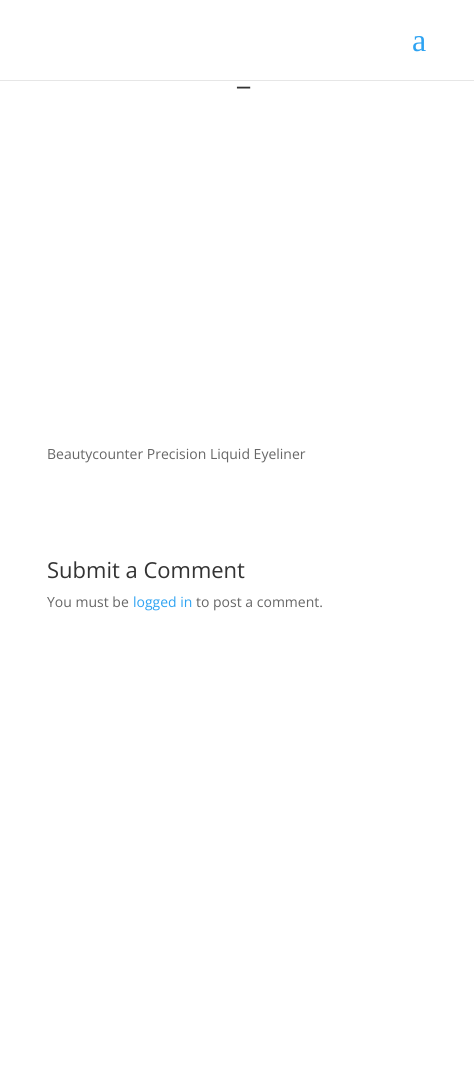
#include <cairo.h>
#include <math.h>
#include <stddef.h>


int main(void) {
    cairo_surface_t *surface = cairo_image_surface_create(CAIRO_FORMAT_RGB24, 474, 1083);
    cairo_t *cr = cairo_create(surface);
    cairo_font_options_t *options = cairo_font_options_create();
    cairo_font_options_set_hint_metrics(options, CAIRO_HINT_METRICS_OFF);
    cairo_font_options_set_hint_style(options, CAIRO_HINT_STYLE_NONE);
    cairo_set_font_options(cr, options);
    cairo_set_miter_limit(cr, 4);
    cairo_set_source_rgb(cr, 1, 1, 1);
    cairo_paint(cr);
    cairo_set_source_rgba(cr, 0, 0, 0, 0.1);
    cairo_rectangle(cr, 0, 80, 474, 1);
    cairo_fill(cr);
    cairo_select_font_face(cr, "Liberation Serif", CAIRO_FONT_SLANT_NORMAL, CAIRO_FONT_WEIGHT_NORMAL);
    cairo_set_font_size(cr, 32);
    cairo_set_source_rgb(cr, 0.18, 0.639, 0.949);
    cairo_move_to(cr, 412, 51);
    cairo_show_text(cr, "a");
    cairo_select_font_face(cr, "Open Sans", CAIRO_FONT_SLANT_NORMAL, CAIRO_FONT_WEIGHT_NORMAL);
    cairo_set_font_size(cr, 30);
    cairo_set_source_rgb(cr, 0.2, 0.2, 0.2);
    cairo_move_to(cr, 237, 84);
    cairo_show_text(cr, "_");
    cairo_set_font_size(cr, 14);
    cairo_set_source_rgb(cr, 0.4, 0.4, 0.4);
    cairo_move_to(cr, 47, 459);
    cairo_show_text(cr, "Beautycounter Precision Liquid Eyeliner");
    cairo_set_font_size(cr, 22);
    cairo_set_source_rgb(cr, 0.2, 0.2, 0.2);
    cairo_move_to(cr, 47, 578);
    cairo_show_text(cr, "Submit a Comment");
    cairo_set_font_size(cr, 14);
    cairo_set_source_rgb(cr, 0.4, 0.4, 0.4);
    cairo_move_to(cr, 47, 607);
    cairo_show_text(cr, "You must be");
    cairo_set_source_rgb(cr, 0.18, 0.639, 0.949);
    cairo_move_to(cr, 133, 607);
    cairo_show_text(cr, "logged in");
    cairo_set_source_rgb(cr, 0.4, 0.4, 0.4);
    cairo_move_to(cr, 196, 607);
    cairo_show_text(cr, "to post a comment.");
    cairo_surface_write_to_png(surface, "page.png");
    cairo_font_options_destroy(options);
    cairo_destroy(cr);
    cairo_surface_destroy(surface);
    return 0;
}
